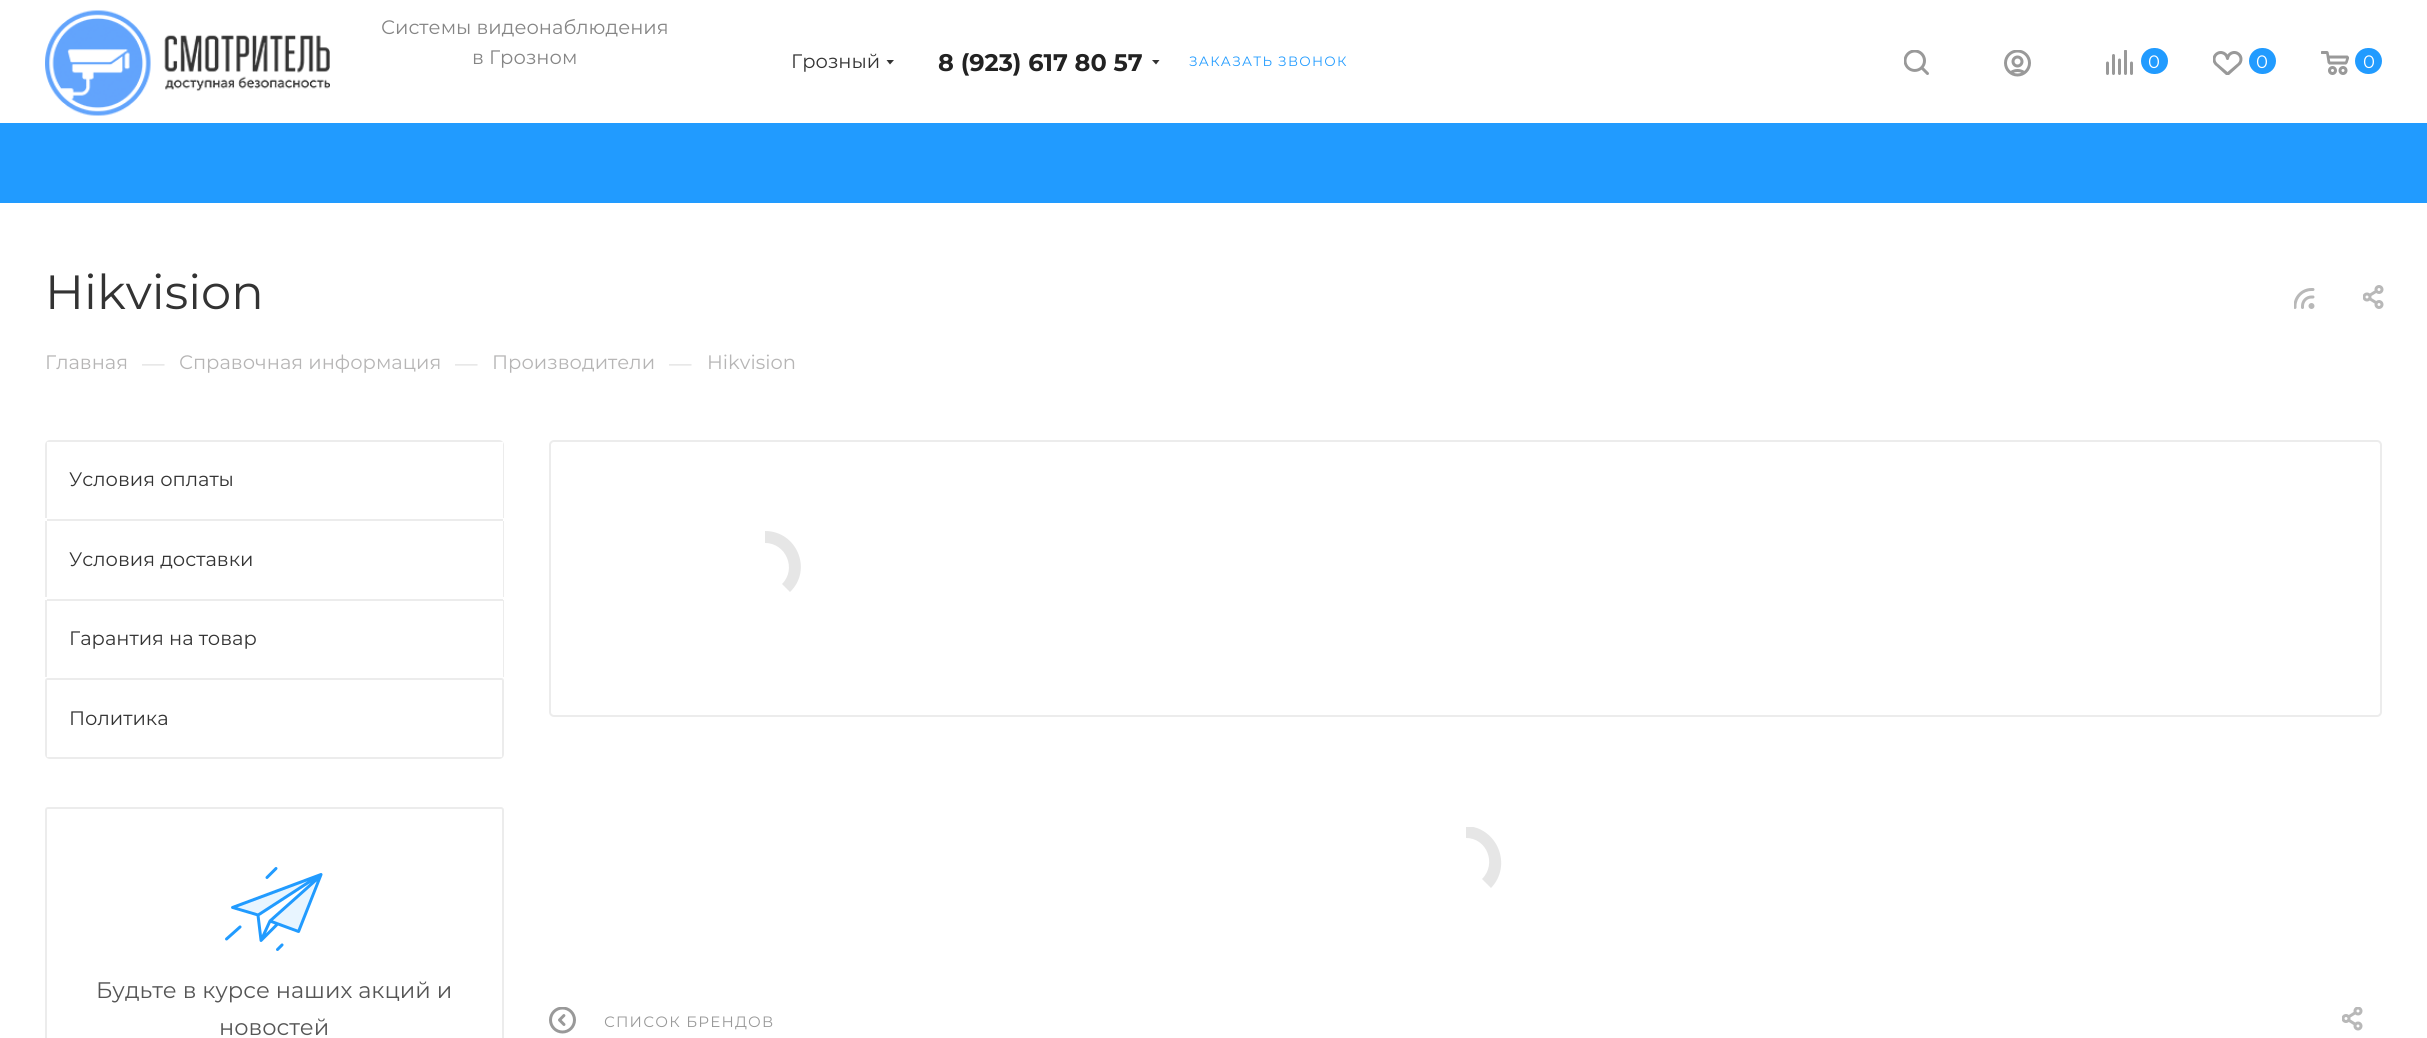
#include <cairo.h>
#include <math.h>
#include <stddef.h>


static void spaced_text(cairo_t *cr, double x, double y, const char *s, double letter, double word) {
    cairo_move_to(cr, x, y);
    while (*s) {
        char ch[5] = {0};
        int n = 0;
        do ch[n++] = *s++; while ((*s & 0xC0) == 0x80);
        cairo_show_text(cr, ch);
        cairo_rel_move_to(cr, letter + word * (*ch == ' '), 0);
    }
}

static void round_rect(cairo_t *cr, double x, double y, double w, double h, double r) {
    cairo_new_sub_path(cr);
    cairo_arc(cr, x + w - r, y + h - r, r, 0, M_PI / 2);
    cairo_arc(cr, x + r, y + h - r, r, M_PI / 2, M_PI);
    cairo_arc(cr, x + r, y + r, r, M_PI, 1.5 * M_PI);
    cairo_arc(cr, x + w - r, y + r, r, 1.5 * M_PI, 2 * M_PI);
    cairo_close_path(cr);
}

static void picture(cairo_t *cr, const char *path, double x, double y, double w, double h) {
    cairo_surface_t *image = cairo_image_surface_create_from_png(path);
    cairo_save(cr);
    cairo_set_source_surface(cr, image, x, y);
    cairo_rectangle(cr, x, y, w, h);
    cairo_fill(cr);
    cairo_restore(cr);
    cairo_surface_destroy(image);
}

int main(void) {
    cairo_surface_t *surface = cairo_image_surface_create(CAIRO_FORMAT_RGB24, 2427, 1038);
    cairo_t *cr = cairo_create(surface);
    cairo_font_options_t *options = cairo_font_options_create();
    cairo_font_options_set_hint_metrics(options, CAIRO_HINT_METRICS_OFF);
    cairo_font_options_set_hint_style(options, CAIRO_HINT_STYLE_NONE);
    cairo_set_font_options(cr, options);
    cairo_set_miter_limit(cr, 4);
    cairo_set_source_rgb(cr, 1, 1, 1);
    cairo_paint(cr);
    picture(cr, "img1.png", 45, 10, 285, 106);
    cairo_select_font_face(cr, "Montserrat", CAIRO_FONT_SLANT_NORMAL, CAIRO_FONT_WEIGHT_NORMAL);
    cairo_set_font_size(cr, 19.5);
    cairo_set_source_rgb(cr, 0.522, 0.522, 0.522);
    cairo_move_to(cr, 381, 34);
    cairo_show_text(cr, "Системы видеонаблюдения");
    cairo_move_to(cr, 472, 64);
    cairo_show_text(cr, "в Грозном");
    cairo_set_source_rgb(cr, 0.2, 0.2, 0.2);
    cairo_move_to(cr, 791, 68);
    cairo_show_text(cr, "Грозный");
    cairo_set_fill_rule(cr, CAIRO_FILL_RULE_EVEN_ODD);
    cairo_new_path(cr);
    cairo_move_to(cr, 886.5, 60);
    cairo_line_to(cr, 894, 60);
    cairo_line_to(cr, 890, 64.5);
    cairo_close_path(cr);
    cairo_fill(cr);
    cairo_select_font_face(cr, "Montserrat", CAIRO_FONT_SLANT_NORMAL, CAIRO_FONT_WEIGHT_BOLD);
    cairo_set_font_size(cr, 24);
    cairo_set_source_rgb(cr, 0.133, 0.133, 0.133);
    cairo_move_to(cr, 938, 71);
    cairo_show_text(cr, "8 (923) 617 80 57");
    cairo_set_source_rgb(cr, 0.2, 0.2, 0.2);
    cairo_new_path(cr);
    cairo_move_to(cr, 1152, 60);
    cairo_line_to(cr, 1159.5, 60);
    cairo_line_to(cr, 1156, 64.5);
    cairo_close_path(cr);
    cairo_fill(cr);
    cairo_select_font_face(cr, "Montserrat", CAIRO_FONT_SLANT_NORMAL, CAIRO_FONT_WEIGHT_NORMAL);
    cairo_set_font_size(cr, 13.5);
    cairo_set_source_rgb(cr, 0.129, 0.608, 1);
    spaced_text(cr, 1189, 66, "ЗАКАЗАТЬ ЗВОНОК", 1.25, 0);
    picture(cr, "img2.png", 1904, 50, 25, 25);
    picture(cr, "img3.png", 2004, 50, 27, 27);
    picture(cr, "img4.png", 2106, 50, 27, 25);
    round_rect(cr, 2141, 48, 27, 26, 13);
    cairo_fill(cr);
    cairo_set_font_size(cr, 18);
    cairo_set_source_rgb(cr, 1, 1, 1);
    cairo_move_to(cr, 2148, 68);
    cairo_show_text(cr, "0");
    picture(cr, "img5.png", 2213, 51, 30, 24);
    cairo_set_source_rgb(cr, 0.129, 0.608, 1);
    round_rect(cr, 2249, 48, 27, 26, 13);
    cairo_fill(cr);
    cairo_set_source_rgb(cr, 1, 1, 1);
    cairo_move_to(cr, 2256, 68);
    cairo_show_text(cr, "0");
    picture(cr, "img6.png", 2321, 51, 28, 24);
    cairo_set_source_rgb(cr, 0.129, 0.608, 1);
    round_rect(cr, 2355, 48, 27, 26, 13);
    cairo_fill(cr);
    cairo_set_source_rgb(cr, 1, 1, 1);
    cairo_move_to(cr, 2363, 68);
    cairo_show_text(cr, "0");
    cairo_set_source_rgb(cr, 0.129, 0.608, 1);
    cairo_rectangle(cr, 0, 123, 2427, 80);
    cairo_fill(cr);
    cairo_set_font_size(cr, 48);
    cairo_set_source_rgb(cr, 0.2, 0.2, 0.2);
    cairo_move_to(cr, 45, 309);
    cairo_show_text(cr, "Hikvision");
    picture(cr, "img7.png", 2294, 288, 21, 21);
    picture(cr, "img8.png", 2363, 285, 21, 24);
    cairo_set_font_size(cr, 19.5);
    cairo_set_source_rgb(cr, 0.714, 0.71, 0.71);
    cairo_move_to(cr, 45, 369);
    cairo_show_text(cr, "Главная");
    cairo_set_font_size(cr, 22.5);
    cairo_set_source_rgb(cr, 0.867, 0.867, 0.867);
    cairo_move_to(cr, 142, 371);
    cairo_show_text(cr, "—");
    cairo_set_font_size(cr, 19.5);
    cairo_set_source_rgb(cr, 0.714, 0.71, 0.71);
    cairo_move_to(cr, 179, 369);
    cairo_show_text(cr, "Справочная информация");
    cairo_set_font_size(cr, 22.5);
    cairo_set_source_rgb(cr, 0.867, 0.867, 0.867);
    cairo_move_to(cr, 455, 371);
    cairo_show_text(cr, "—");
    cairo_set_font_size(cr, 19.5);
    cairo_set_source_rgb(cr, 0.714, 0.71, 0.71);
    cairo_move_to(cr, 492, 369);
    cairo_show_text(cr, "Производители");
    cairo_set_font_size(cr, 22.5);
    cairo_set_source_rgb(cr, 0.867, 0.867, 0.867);
    cairo_move_to(cr, 669, 371);
    cairo_show_text(cr, "—");
    cairo_set_font_size(cr, 19.5);
    cairo_set_source_rgb(cr, 0.714, 0.71, 0.71);
    cairo_move_to(cr, 707, 369);
    cairo_show_text(cr, "Hikvision");
    cairo_save(cr);
    cairo_set_fill_rule(cr, CAIRO_FILL_RULE_WINDING);
    round_rect(cr, 45, 440, 459, 319, 5);
    cairo_clip(cr);
    cairo_set_source_rgb(cr, 0.925, 0.925, 0.925);
    cairo_rectangle(cr, 47, 440, 456, 2);
    cairo_fill(cr);
    cairo_rectangle(cr, 503, 441, 1, 77);
    cairo_fill(cr);
    cairo_rectangle(cr, 45, 441, 2, 77);
    cairo_fill(cr);
    cairo_restore(cr);
    cairo_set_source_rgb(cr, 0.2, 0.2, 0.2);
    cairo_move_to(cr, 69, 486);
    cairo_show_text(cr, "Условия оплаты");
    cairo_set_source_rgb(cr, 0.925, 0.925, 0.925);
    cairo_rectangle(cr, 47, 519, 456, 2);
    cairo_fill(cr);
    cairo_rectangle(cr, 503, 521, 1, 76);
    cairo_fill(cr);
    cairo_rectangle(cr, 45, 521, 2, 76);
    cairo_fill(cr);
    cairo_set_source_rgb(cr, 0.2, 0.2, 0.2);
    cairo_move_to(cr, 69, 566);
    cairo_show_text(cr, "Условия доставки");
    cairo_set_source_rgb(cr, 0.925, 0.925, 0.925);
    cairo_rectangle(cr, 47, 599, 456, 2);
    cairo_fill(cr);
    cairo_rectangle(cr, 503, 600, 1, 77);
    cairo_fill(cr);
    cairo_rectangle(cr, 45, 600, 2, 77);
    cairo_fill(cr);
    cairo_set_source_rgb(cr, 0.2, 0.2, 0.2);
    cairo_move_to(cr, 69, 645);
    cairo_show_text(cr, "Гарантия на товар");
    cairo_set_source_rgb(cr, 0.925, 0.925, 0.925);
    cairo_new_path(cr);
    cairo_move_to(cr, 48, 678);
    cairo_curve_to(cr, 46, 678, 45, 679, 45, 681);
    cairo_line_to(cr, 45, 754);
    cairo_curve_to(cr, 45, 757, 47, 759, 50, 759);
    cairo_line_to(cr, 499, 759);
    cairo_curve_to(cr, 502, 759, 504, 757, 504, 754);
    cairo_line_to(cr, 504, 681);
    cairo_curve_to(cr, 504, 679, 503, 678, 501, 678);
    cairo_close_path(cr);
    cairo_move_to(cr, 48, 680);
    cairo_curve_to(cr, 47, 680, 47, 680, 47, 681);
    cairo_line_to(cr, 47, 756);
    cairo_curve_to(cr, 47, 757, 47, 757, 48, 757);
    cairo_line_to(cr, 501, 757);
    cairo_curve_to(cr, 502, 757, 502, 757, 502, 756);
    cairo_line_to(cr, 502, 681);
    cairo_curve_to(cr, 502, 680, 502, 680, 501, 680);
    cairo_close_path(cr);
    cairo_fill(cr);
    cairo_set_source_rgb(cr, 0.2, 0.2, 0.2);
    cairo_move_to(cr, 69, 725);
    cairo_show_text(cr, "Политика");
    round_rect(cr, 46, 808, 457, 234, 2);
    cairo_set_source_rgb(cr, 0.925, 0.925, 0.925);
    cairo_stroke(cr);
    picture(cr, "img9.png", 225, 867, 98, 84);
    cairo_set_font_size(cr, 22.5);
    cairo_set_source_rgb(cr, 0.333, 0.333, 0.333);
    cairo_move_to(cr, 96, 998);
    cairo_show_text(cr, "Будьте в курсе наших акций и");
    cairo_move_to(cr, 219, 1035);
    cairo_show_text(cr, "новостей");
    round_rect(cr, 550, 441, 1831, 275, 4);
    cairo_set_source_rgb(cr, 0.925, 0.925, 0.925);
    cairo_stroke(cr);
    cairo_set_source_rgb(cr, 0.902, 0.902, 0.902);
    cairo_set_fill_rule(cr, CAIRO_FILL_RULE_WINDING);
    cairo_new_path(cr);
    cairo_move_to(cr, 765, 531);
    cairo_curve_to(cr, 797, 531, 813, 570, 790, 592);
    cairo_line_to(cr, 782, 584);
    cairo_curve_to(cr, 797, 569, 786, 543, 765, 543);
    cairo_close_path(cr);
    cairo_fill(cr);
    cairo_save(cr);
    cairo_rectangle(cr, 1430, 827, 72, 72);
    cairo_clip(cr);
    cairo_new_path(cr);
    cairo_move_to(cr, 1466, 826);
    cairo_curve_to(cr, 1497, 827, 1513, 865, 1491, 888);
    cairo_line_to(cr, 1482, 879);
    cairo_curve_to(cr, 1497, 864, 1487, 838, 1466, 838);
    cairo_close_path(cr);
    cairo_fill(cr);
    cairo_restore(cr);
    picture(cr, "img10.png", 549, 1007, 27, 27);
    cairo_set_font_size(cr, 15);
    cairo_set_source_rgb(cr, 0.6, 0.6, 0.6);
    spaced_text(cr, 604, 1027, "СПИСОК БРЕНДОВ", 1.25, 0);
    picture(cr, "img11.png", 2342, 1007, 21, 24);
    cairo_surface_write_to_png(surface, "page.png");
    cairo_font_options_destroy(options);
    cairo_destroy(cr);
    cairo_surface_destroy(surface);
    return 0;
}
